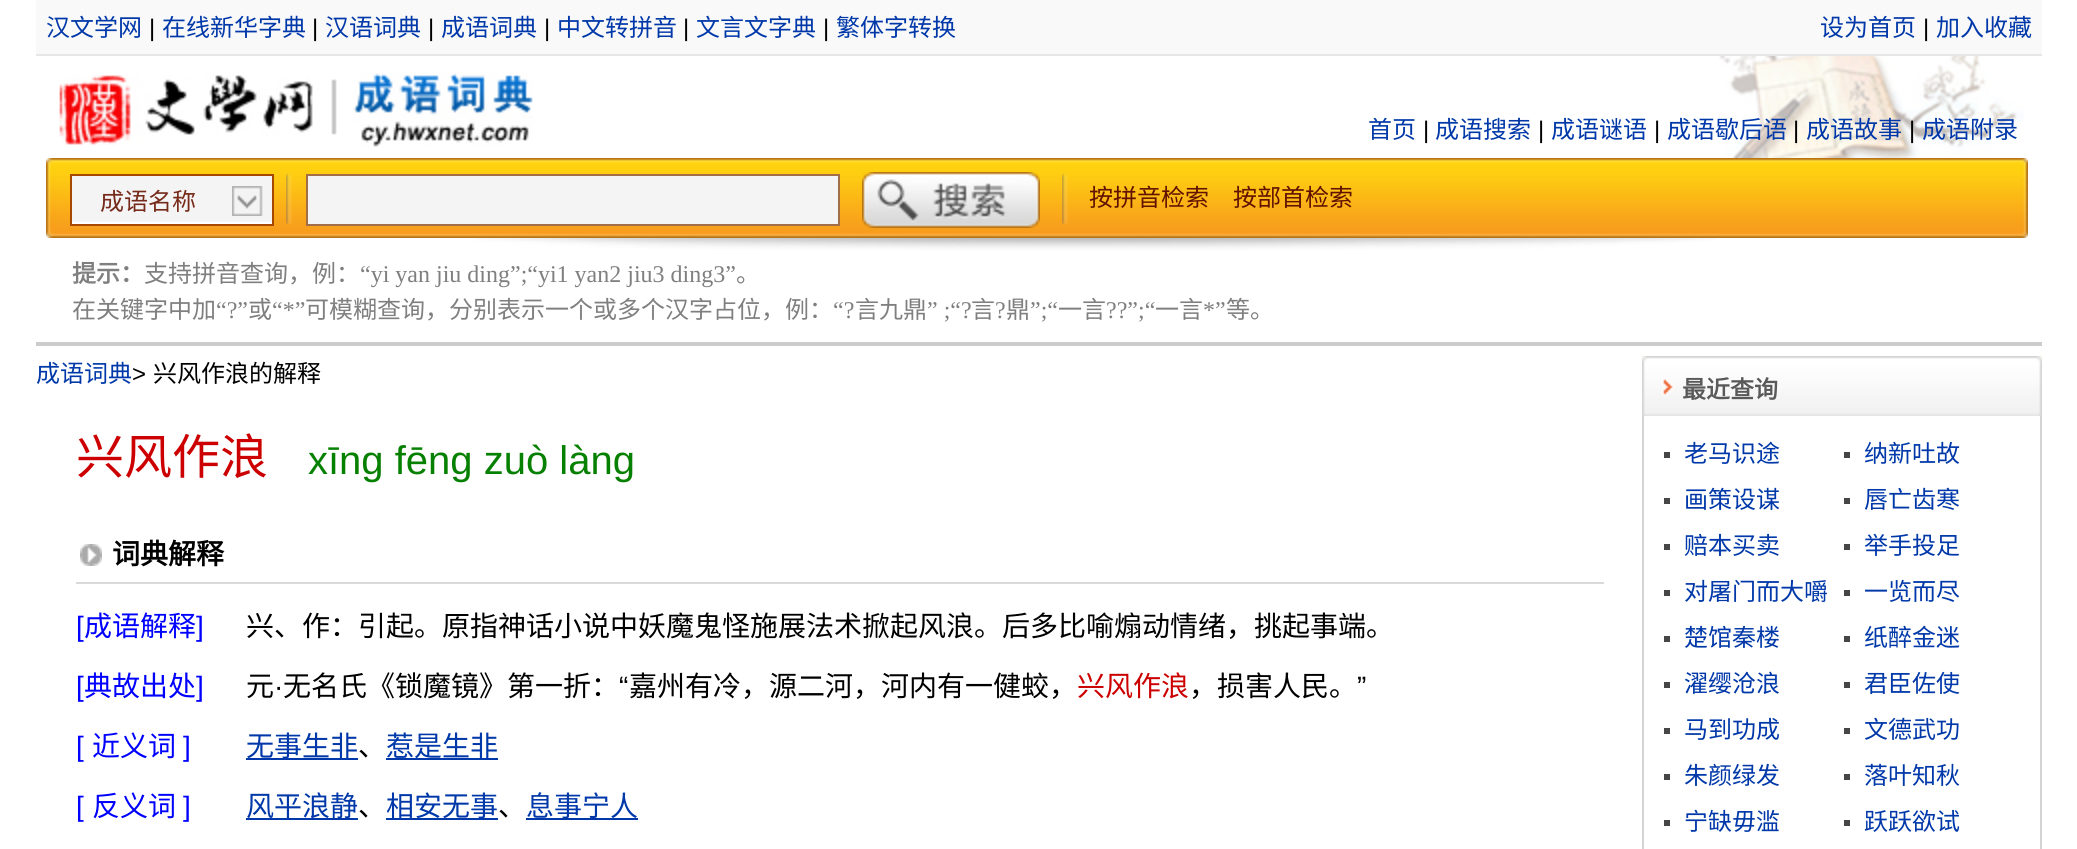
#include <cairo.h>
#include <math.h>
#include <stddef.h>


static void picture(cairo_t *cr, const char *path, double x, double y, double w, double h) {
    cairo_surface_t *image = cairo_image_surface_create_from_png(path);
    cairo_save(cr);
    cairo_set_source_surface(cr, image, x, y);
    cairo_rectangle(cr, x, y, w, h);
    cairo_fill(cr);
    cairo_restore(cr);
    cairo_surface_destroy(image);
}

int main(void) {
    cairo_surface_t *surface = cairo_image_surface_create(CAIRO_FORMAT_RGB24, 2077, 849);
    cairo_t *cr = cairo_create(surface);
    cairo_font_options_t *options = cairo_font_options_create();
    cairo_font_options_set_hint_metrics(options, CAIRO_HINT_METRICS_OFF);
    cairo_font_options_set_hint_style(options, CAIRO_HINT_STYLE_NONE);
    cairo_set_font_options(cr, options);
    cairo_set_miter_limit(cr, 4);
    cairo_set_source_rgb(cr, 1, 1, 1);
    cairo_paint(cr);
    cairo_set_source_rgb(cr, 0.976, 0.976, 0.976);
    cairo_rectangle(cr, 36, 0, 2006, 54);
    cairo_fill(cr);
    cairo_set_source_rgb(cr, 0.906, 0.906, 0.906);
    cairo_rectangle(cr, 36, 54, 2006, 2);
    cairo_fill(cr);
    cairo_select_font_face(cr, "Noto Sans CJK SC", CAIRO_FONT_SLANT_NORMAL, CAIRO_FONT_WEIGHT_NORMAL);
    cairo_set_font_size(cr, 24);
    cairo_set_source_rgb(cr, 0, 0.22, 0.663);
    cairo_move_to(cr, 46, 36);
    cairo_show_text(cr, "汉文学网");
    cairo_select_font_face(cr, "Liberation Sans", CAIRO_FONT_SLANT_NORMAL, CAIRO_FONT_WEIGHT_NORMAL);
    cairo_set_source_rgb(cr, 0, 0, 0);
    cairo_move_to(cr, 149, 36);
    cairo_show_text(cr, "|");
    cairo_select_font_face(cr, "Noto Sans CJK SC", CAIRO_FONT_SLANT_NORMAL, CAIRO_FONT_WEIGHT_NORMAL);
    cairo_set_source_rgb(cr, 0, 0.22, 0.663);
    cairo_move_to(cr, 162, 36);
    cairo_show_text(cr, "在线新华字典");
    cairo_select_font_face(cr, "Liberation Sans", CAIRO_FONT_SLANT_NORMAL, CAIRO_FONT_WEIGHT_NORMAL);
    cairo_set_source_rgb(cr, 0, 0, 0);
    cairo_move_to(cr, 312, 36);
    cairo_show_text(cr, "|");
    cairo_select_font_face(cr, "Noto Sans CJK SC", CAIRO_FONT_SLANT_NORMAL, CAIRO_FONT_WEIGHT_NORMAL);
    cairo_set_source_rgb(cr, 0, 0.22, 0.663);
    cairo_move_to(cr, 325, 36);
    cairo_show_text(cr, "汉语词典");
    cairo_select_font_face(cr, "Liberation Sans", CAIRO_FONT_SLANT_NORMAL, CAIRO_FONT_WEIGHT_NORMAL);
    cairo_set_source_rgb(cr, 0, 0, 0);
    cairo_move_to(cr, 428, 36);
    cairo_show_text(cr, "|");
    cairo_select_font_face(cr, "Noto Sans CJK SC", CAIRO_FONT_SLANT_NORMAL, CAIRO_FONT_WEIGHT_NORMAL);
    cairo_set_source_rgb(cr, 0, 0.22, 0.663);
    cairo_move_to(cr, 441, 36);
    cairo_show_text(cr, "成语词典");
    cairo_select_font_face(cr, "Liberation Sans", CAIRO_FONT_SLANT_NORMAL, CAIRO_FONT_WEIGHT_NORMAL);
    cairo_set_source_rgb(cr, 0, 0, 0);
    cairo_move_to(cr, 544, 36);
    cairo_show_text(cr, "|");
    cairo_select_font_face(cr, "Noto Sans CJK SC", CAIRO_FONT_SLANT_NORMAL, CAIRO_FONT_WEIGHT_NORMAL);
    cairo_set_source_rgb(cr, 0, 0.22, 0.663);
    cairo_move_to(cr, 557, 36);
    cairo_show_text(cr, "中文转拼音");
    cairo_select_font_face(cr, "Liberation Sans", CAIRO_FONT_SLANT_NORMAL, CAIRO_FONT_WEIGHT_NORMAL);
    cairo_set_source_rgb(cr, 0, 0, 0);
    cairo_move_to(cr, 683, 36);
    cairo_show_text(cr, "|");
    cairo_select_font_face(cr, "Noto Sans CJK SC", CAIRO_FONT_SLANT_NORMAL, CAIRO_FONT_WEIGHT_NORMAL);
    cairo_set_source_rgb(cr, 0, 0.22, 0.663);
    cairo_move_to(cr, 696, 36);
    cairo_show_text(cr, "文言文字典");
    cairo_select_font_face(cr, "Liberation Sans", CAIRO_FONT_SLANT_NORMAL, CAIRO_FONT_WEIGHT_NORMAL);
    cairo_set_source_rgb(cr, 0, 0, 0);
    cairo_move_to(cr, 823, 36);
    cairo_show_text(cr, "|");
    cairo_select_font_face(cr, "Noto Sans CJK SC", CAIRO_FONT_SLANT_NORMAL, CAIRO_FONT_WEIGHT_NORMAL);
    cairo_set_source_rgb(cr, 0, 0.22, 0.663);
    cairo_move_to(cr, 836, 36);
    cairo_show_text(cr, "繁体字转换");
    cairo_move_to(cr, 1820, 36);
    cairo_show_text(cr, "设为首页");
    cairo_select_font_face(cr, "Liberation Sans", CAIRO_FONT_SLANT_NORMAL, CAIRO_FONT_WEIGHT_NORMAL);
    cairo_set_source_rgb(cr, 0, 0, 0);
    cairo_move_to(cr, 1923, 36);
    cairo_show_text(cr, "|");
    cairo_select_font_face(cr, "Noto Sans CJK SC", CAIRO_FONT_SLANT_NORMAL, CAIRO_FONT_WEIGHT_NORMAL);
    cairo_set_source_rgb(cr, 0, 0.22, 0.663);
    cairo_move_to(cr, 1936, 36);
    cairo_show_text(cr, "加入收藏");
    picture(cr, "img1.png", 1719, 56, 305, 102);
    picture(cr, "img2.png", 59, 75, 254, 70);
    picture(cr, "img3.png", 331, 79, 6, 56);
    picture(cr, "img4.png", 353, 73, 180, 74);
    cairo_move_to(cr, 1368, 138);
    cairo_show_text(cr, "首页");
    cairo_select_font_face(cr, "Liberation Sans", CAIRO_FONT_SLANT_NORMAL, CAIRO_FONT_WEIGHT_NORMAL);
    cairo_set_source_rgb(cr, 0, 0, 0);
    cairo_move_to(cr, 1423, 138);
    cairo_show_text(cr, "|");
    cairo_select_font_face(cr, "Noto Sans CJK SC", CAIRO_FONT_SLANT_NORMAL, CAIRO_FONT_WEIGHT_NORMAL);
    cairo_set_source_rgb(cr, 0, 0.22, 0.663);
    cairo_move_to(cr, 1435, 138);
    cairo_show_text(cr, "成语搜索");
    cairo_select_font_face(cr, "Liberation Sans", CAIRO_FONT_SLANT_NORMAL, CAIRO_FONT_WEIGHT_NORMAL);
    cairo_set_source_rgb(cr, 0, 0, 0);
    cairo_move_to(cr, 1538, 138);
    cairo_show_text(cr, "|");
    cairo_select_font_face(cr, "Noto Sans CJK SC", CAIRO_FONT_SLANT_NORMAL, CAIRO_FONT_WEIGHT_NORMAL);
    cairo_set_source_rgb(cr, 0, 0.22, 0.663);
    cairo_move_to(cr, 1551, 138);
    cairo_show_text(cr, "成语谜语");
    cairo_select_font_face(cr, "Liberation Sans", CAIRO_FONT_SLANT_NORMAL, CAIRO_FONT_WEIGHT_NORMAL);
    cairo_set_source_rgb(cr, 0, 0, 0);
    cairo_move_to(cr, 1654, 138);
    cairo_show_text(cr, "|");
    cairo_select_font_face(cr, "Noto Sans CJK SC", CAIRO_FONT_SLANT_NORMAL, CAIRO_FONT_WEIGHT_NORMAL);
    cairo_set_source_rgb(cr, 0, 0.22, 0.663);
    cairo_move_to(cr, 1667, 138);
    cairo_show_text(cr, "成语歇后语");
    cairo_select_font_face(cr, "Liberation Sans", CAIRO_FONT_SLANT_NORMAL, CAIRO_FONT_WEIGHT_NORMAL);
    cairo_set_source_rgb(cr, 0, 0, 0);
    cairo_move_to(cr, 1793, 138);
    cairo_show_text(cr, "|");
    cairo_select_font_face(cr, "Noto Sans CJK SC", CAIRO_FONT_SLANT_NORMAL, CAIRO_FONT_WEIGHT_NORMAL);
    cairo_set_source_rgb(cr, 0, 0.22, 0.663);
    cairo_move_to(cr, 1806, 138);
    cairo_show_text(cr, "成语故事");
    cairo_select_font_face(cr, "Liberation Sans", CAIRO_FONT_SLANT_NORMAL, CAIRO_FONT_WEIGHT_NORMAL);
    cairo_set_source_rgb(cr, 0, 0, 0);
    cairo_move_to(cr, 1909, 138);
    cairo_show_text(cr, "|");
    cairo_select_font_face(cr, "Noto Sans CJK SC", CAIRO_FONT_SLANT_NORMAL, CAIRO_FONT_WEIGHT_NORMAL);
    cairo_set_source_rgb(cr, 0, 0.22, 0.663);
    cairo_move_to(cr, 1922, 138);
    cairo_show_text(cr, "成语附录");
    picture(cr, "img5.png", 56, 158, 1964, 80);
    picture(cr, "img6.png", 46, 158, 10, 80);
    cairo_set_source_rgb(cr, 0.957, 0.957, 0.957);
    cairo_rectangle(cr, 72, 176, 200, 46);
    cairo_fill(cr);
    picture(cr, "img7.png", 232, 186, 31, 30);
    cairo_rectangle(cr, 71, 175, 202, 50);
    cairo_set_source_rgb(cr, 0.655, 0.282, 0.004);
    cairo_stroke(cr);
    cairo_set_source_rgb(cr, 1, 1, 1);
    cairo_rectangle(cr, 72, 222, 200, 2);
    cairo_fill(cr);
    cairo_set_source_rgb(cr, 0.463, 0.165, 0.098);
    cairo_move_to(cr, 100, 210);
    cairo_show_text(cr, "成语名称");
    picture(cr, "img8.png", 286, 172, 6, 52);
    cairo_set_source_rgb(cr, 0.957, 0.957, 0.957);
    cairo_rectangle(cr, 307, 175, 532, 50);
    cairo_fill_preserve(cr);
    cairo_set_source_rgb(cr, 0.631, 0.431, 0.282);
    cairo_stroke(cr);
    picture(cr, "img9.png", 862, 172, 178, 56);
    picture(cr, "img8.png", 1062, 172, 6, 52);
    cairo_set_source_rgb(cr, 0.38, 0.071, 0);
    cairo_move_to(cr, 1089, 206);
    cairo_show_text(cr, "按拼音检索");
    cairo_move_to(cr, 1233, 206);
    cairo_show_text(cr, "按部首检索");
    picture(cr, "img10.png", 2020, 158, 8, 80);
    picture(cr, "img11.png", 475, 238, 1242, 12);
    cairo_select_font_face(cr, "Noto Sans CJK SC", CAIRO_FONT_SLANT_NORMAL, CAIRO_FONT_WEIGHT_BOLD);
    cairo_set_source_rgb(cr, 0.498, 0.498, 0.498);
    cairo_move_to(cr, 72, 282);
    cairo_show_text(cr, "提示：");
    cairo_select_font_face(cr, "Noto Sans CJK SC", CAIRO_FONT_SLANT_NORMAL, CAIRO_FONT_WEIGHT_NORMAL);
    cairo_move_to(cr, 144, 282);
    cairo_show_text(cr, "支持拼音查询，例：");
    cairo_select_font_face(cr, "Liberation Serif", CAIRO_FONT_SLANT_NORMAL, CAIRO_FONT_WEIGHT_NORMAL);
    cairo_move_to(cr, 360, 282);
    cairo_show_text(cr, "“yi yan jiu ding”;“yi1 yan2 jiu3 ding3”");
    cairo_select_font_face(cr, "Noto Sans CJK SC", CAIRO_FONT_SLANT_NORMAL, CAIRO_FONT_WEIGHT_NORMAL);
    cairo_move_to(cr, 736, 282);
    cairo_show_text(cr, "。");
    cairo_move_to(cr, 72, 318);
    cairo_show_text(cr, "在关键字中加");
    cairo_select_font_face(cr, "Liberation Serif", CAIRO_FONT_SLANT_NORMAL, CAIRO_FONT_WEIGHT_NORMAL);
    cairo_move_to(cr, 216, 318);
    cairo_show_text(cr, "“?”");
    cairo_select_font_face(cr, "Noto Sans CJK SC", CAIRO_FONT_SLANT_NORMAL, CAIRO_FONT_WEIGHT_NORMAL);
    cairo_move_to(cr, 248, 318);
    cairo_show_text(cr, "或");
    cairo_select_font_face(cr, "Liberation Serif", CAIRO_FONT_SLANT_NORMAL, CAIRO_FONT_WEIGHT_NORMAL);
    cairo_move_to(cr, 272, 318);
    cairo_show_text(cr, "“*”");
    cairo_select_font_face(cr, "Noto Sans CJK SC", CAIRO_FONT_SLANT_NORMAL, CAIRO_FONT_WEIGHT_NORMAL);
    cairo_move_to(cr, 305, 318);
    cairo_show_text(cr, "可模糊查询，分别表示一个或多个汉字占位，例：");
    cairo_select_font_face(cr, "Liberation Serif", CAIRO_FONT_SLANT_NORMAL, CAIRO_FONT_WEIGHT_NORMAL);
    cairo_move_to(cr, 833, 318);
    cairo_show_text(cr, "“?");
    cairo_select_font_face(cr, "Noto Sans CJK SC", CAIRO_FONT_SLANT_NORMAL, CAIRO_FONT_WEIGHT_NORMAL);
    cairo_move_to(cr, 855, 318);
    cairo_show_text(cr, "言九鼎");
    cairo_select_font_face(cr, "Liberation Serif", CAIRO_FONT_SLANT_NORMAL, CAIRO_FONT_WEIGHT_NORMAL);
    cairo_move_to(cr, 927, 318);
    cairo_show_text(cr, "” ;“?");
    cairo_select_font_face(cr, "Noto Sans CJK SC", CAIRO_FONT_SLANT_NORMAL, CAIRO_FONT_WEIGHT_NORMAL);
    cairo_move_to(cr, 971, 318);
    cairo_show_text(cr, "言");
    cairo_select_font_face(cr, "Liberation Serif", CAIRO_FONT_SLANT_NORMAL, CAIRO_FONT_WEIGHT_NORMAL);
    cairo_move_to(cr, 995, 318);
    cairo_show_text(cr, "?");
    cairo_select_font_face(cr, "Noto Sans CJK SC", CAIRO_FONT_SLANT_NORMAL, CAIRO_FONT_WEIGHT_NORMAL);
    cairo_move_to(cr, 1006, 318);
    cairo_show_text(cr, "鼎");
    cairo_select_font_face(cr, "Liberation Serif", CAIRO_FONT_SLANT_NORMAL, CAIRO_FONT_WEIGHT_NORMAL);
    cairo_move_to(cr, 1030, 318);
    cairo_show_text(cr, "”;“");
    cairo_select_font_face(cr, "Noto Sans CJK SC", CAIRO_FONT_SLANT_NORMAL, CAIRO_FONT_WEIGHT_NORMAL);
    cairo_move_to(cr, 1058, 318);
    cairo_show_text(cr, "一言");
    cairo_select_font_face(cr, "Liberation Serif", CAIRO_FONT_SLANT_NORMAL, CAIRO_FONT_WEIGHT_NORMAL);
    cairo_move_to(cr, 1106, 318);
    cairo_show_text(cr, "?\077”;“");
    cairo_select_font_face(cr, "Noto Sans CJK SC", CAIRO_FONT_SLANT_NORMAL, CAIRO_FONT_WEIGHT_NORMAL);
    cairo_move_to(cr, 1155, 318);
    cairo_show_text(cr, "一言");
    cairo_select_font_face(cr, "Liberation Serif", CAIRO_FONT_SLANT_NORMAL, CAIRO_FONT_WEIGHT_NORMAL);
    cairo_move_to(cr, 1203, 318);
    cairo_show_text(cr, "*”");
    cairo_select_font_face(cr, "Noto Sans CJK SC", CAIRO_FONT_SLANT_NORMAL, CAIRO_FONT_WEIGHT_NORMAL);
    cairo_move_to(cr, 1226, 318);
    cairo_show_text(cr, "等。");
    cairo_set_source_rgb(cr, 0.8, 0.8, 0.8);
    cairo_rectangle(cr, 36, 342, 2006, 4);
    cairo_fill(cr);
    cairo_set_source_rgb(cr, 0, 0.22, 0.663);
    cairo_move_to(cr, 36, 382);
    cairo_show_text(cr, "成语词典");
    cairo_select_font_face(cr, "Liberation Sans", CAIRO_FONT_SLANT_NORMAL, CAIRO_FONT_WEIGHT_NORMAL);
    cairo_set_source_rgb(cr, 0, 0, 0);
    cairo_move_to(cr, 132, 382);
    cairo_show_text(cr, ">");
    cairo_select_font_face(cr, "Noto Sans CJK SC", CAIRO_FONT_SLANT_NORMAL, CAIRO_FONT_WEIGHT_NORMAL);
    cairo_move_to(cr, 153, 382);
    cairo_show_text(cr, "兴风作浪的解释");
    cairo_set_font_size(cr, 48);
    cairo_set_source_rgb(cr, 0.8, 0, 0);
    cairo_move_to(cr, 76, 474);
    cairo_show_text(cr, "兴风作浪");
    cairo_select_font_face(cr, "Liberation Sans", CAIRO_FONT_SLANT_NORMAL, CAIRO_FONT_WEIGHT_NORMAL);
    cairo_set_font_size(cr, 40);
    cairo_set_source_rgb(cr, 0.027, 0.502, 0);
    cairo_move_to(cr, 308, 474);
    cairo_show_text(cr, "xīng fēng zuò làng");
    picture(cr, "img12.png", 80, 544, 22, 22);
    cairo_set_source_rgb(cr, 0.851, 0.851, 0.851);
    cairo_rectangle(cr, 76, 582, 1528, 2);
    cairo_fill(cr);
    cairo_select_font_face(cr, "Noto Sans CJK SC", CAIRO_FONT_SLANT_NORMAL, CAIRO_FONT_WEIGHT_BOLD);
    cairo_set_font_size(cr, 28);
    cairo_set_source_rgb(cr, 0, 0, 0);
    cairo_move_to(cr, 112, 564);
    cairo_show_text(cr, "词典解释");
    cairo_select_font_face(cr, "Liberation Sans", CAIRO_FONT_SLANT_NORMAL, CAIRO_FONT_WEIGHT_NORMAL);
    cairo_set_source_rgb(cr, 0, 0, 1);
    cairo_move_to(cr, 76, 636);
    cairo_show_text(cr, "[");
    cairo_select_font_face(cr, "Noto Sans CJK SC", CAIRO_FONT_SLANT_NORMAL, CAIRO_FONT_WEIGHT_NORMAL);
    cairo_move_to(cr, 84, 636);
    cairo_show_text(cr, "成语解释");
    cairo_select_font_face(cr, "Liberation Sans", CAIRO_FONT_SLANT_NORMAL, CAIRO_FONT_WEIGHT_NORMAL);
    cairo_move_to(cr, 196, 636);
    cairo_show_text(cr, "]");
    cairo_select_font_face(cr, "Noto Sans CJK SC", CAIRO_FONT_SLANT_NORMAL, CAIRO_FONT_WEIGHT_NORMAL);
    cairo_set_source_rgb(cr, 0, 0, 0);
    cairo_move_to(cr, 246, 636);
    cairo_show_text(cr, "兴、作：引起。原指神话小说中妖魔鬼怪施展法术掀起风浪。后多比喻煽动情绪，挑起事端。");
    cairo_select_font_face(cr, "Liberation Sans", CAIRO_FONT_SLANT_NORMAL, CAIRO_FONT_WEIGHT_NORMAL);
    cairo_set_source_rgb(cr, 0, 0, 1);
    cairo_move_to(cr, 76, 696);
    cairo_show_text(cr, "[");
    cairo_select_font_face(cr, "Noto Sans CJK SC", CAIRO_FONT_SLANT_NORMAL, CAIRO_FONT_WEIGHT_NORMAL);
    cairo_move_to(cr, 84, 696);
    cairo_show_text(cr, "典故出处");
    cairo_select_font_face(cr, "Liberation Sans", CAIRO_FONT_SLANT_NORMAL, CAIRO_FONT_WEIGHT_NORMAL);
    cairo_move_to(cr, 196, 696);
    cairo_show_text(cr, "]");
    cairo_select_font_face(cr, "Noto Sans CJK SC", CAIRO_FONT_SLANT_NORMAL, CAIRO_FONT_WEIGHT_NORMAL);
    cairo_set_source_rgb(cr, 0, 0, 0);
    cairo_move_to(cr, 246, 696);
    cairo_show_text(cr, "元");
    cairo_move_to(cr, 283, 696);
    cairo_show_text(cr, "无名氏《锁魔镜》第一折：");
    cairo_select_font_face(cr, "Liberation Sans", CAIRO_FONT_SLANT_NORMAL, CAIRO_FONT_WEIGHT_NORMAL);
    cairo_move_to(cr, 619, 696);
    cairo_show_text(cr, "“");
    cairo_select_font_face(cr, "Noto Sans CJK SC", CAIRO_FONT_SLANT_NORMAL, CAIRO_FONT_WEIGHT_NORMAL);
    cairo_move_to(cr, 629, 696);
    cairo_show_text(cr, "嘉州有冷，源二河，河内有一健蛟，");
    cairo_set_source_rgb(cr, 0.8, 0, 0);
    cairo_move_to(cr, 1077, 696);
    cairo_show_text(cr, "兴风作浪");
    cairo_set_source_rgb(cr, 0, 0, 0);
    cairo_move_to(cr, 1189, 696);
    cairo_show_text(cr, "，损害人民。");
    cairo_select_font_face(cr, "Liberation Sans", CAIRO_FONT_SLANT_NORMAL, CAIRO_FONT_WEIGHT_NORMAL);
    cairo_move_to(cr, 1357, 696);
    cairo_show_text(cr, "”");
    cairo_move_to(cr, 274, 696);
    cairo_show_text(cr, "·");
    cairo_set_source_rgb(cr, 0, 0, 1);
    cairo_move_to(cr, 76, 756);
    cairo_show_text(cr, "[");
    cairo_select_font_face(cr, "Noto Sans CJK SC", CAIRO_FONT_SLANT_NORMAL, CAIRO_FONT_WEIGHT_NORMAL);
    cairo_move_to(cr, 92, 756);
    cairo_show_text(cr, "近义词");
    cairo_select_font_face(cr, "Liberation Sans", CAIRO_FONT_SLANT_NORMAL, CAIRO_FONT_WEIGHT_NORMAL);
    cairo_move_to(cr, 183, 756);
    cairo_show_text(cr, "]");
    cairo_set_source_rgb(cr, 0, 0.22, 0.663);
    cairo_rectangle(cr, 246, 758, 112, 2);
    cairo_fill(cr);
    cairo_select_font_face(cr, "Noto Sans CJK SC", CAIRO_FONT_SLANT_NORMAL, CAIRO_FONT_WEIGHT_NORMAL);
    cairo_move_to(cr, 246, 756);
    cairo_show_text(cr, "无事生非");
    cairo_set_source_rgb(cr, 0, 0, 0);
    cairo_move_to(cr, 358, 756);
    cairo_show_text(cr, "、");
    cairo_set_source_rgb(cr, 0, 0.22, 0.663);
    cairo_rectangle(cr, 386, 758, 112, 2);
    cairo_fill(cr);
    cairo_move_to(cr, 386, 756);
    cairo_show_text(cr, "惹是生非");
    cairo_select_font_face(cr, "Liberation Sans", CAIRO_FONT_SLANT_NORMAL, CAIRO_FONT_WEIGHT_NORMAL);
    cairo_set_source_rgb(cr, 0, 0, 1);
    cairo_move_to(cr, 76, 816);
    cairo_show_text(cr, "[");
    cairo_select_font_face(cr, "Noto Sans CJK SC", CAIRO_FONT_SLANT_NORMAL, CAIRO_FONT_WEIGHT_NORMAL);
    cairo_move_to(cr, 92, 816);
    cairo_show_text(cr, "反义词");
    cairo_select_font_face(cr, "Liberation Sans", CAIRO_FONT_SLANT_NORMAL, CAIRO_FONT_WEIGHT_NORMAL);
    cairo_move_to(cr, 183, 816);
    cairo_show_text(cr, "]");
    cairo_set_source_rgb(cr, 0, 0.22, 0.663);
    cairo_rectangle(cr, 246, 818, 112, 2);
    cairo_fill(cr);
    cairo_select_font_face(cr, "Noto Sans CJK SC", CAIRO_FONT_SLANT_NORMAL, CAIRO_FONT_WEIGHT_NORMAL);
    cairo_move_to(cr, 246, 816);
    cairo_show_text(cr, "风平浪静");
    cairo_set_source_rgb(cr, 0, 0, 0);
    cairo_move_to(cr, 358, 816);
    cairo_show_text(cr, "、");
    cairo_set_source_rgb(cr, 0, 0.22, 0.663);
    cairo_rectangle(cr, 386, 818, 112, 2);
    cairo_fill(cr);
    cairo_move_to(cr, 386, 816);
    cairo_show_text(cr, "相安无事");
    cairo_set_source_rgb(cr, 0, 0, 0);
    cairo_move_to(cr, 498, 816);
    cairo_show_text(cr, "、");
    cairo_set_source_rgb(cr, 0, 0.22, 0.663);
    cairo_rectangle(cr, 526, 818, 112, 2);
    cairo_fill(cr);
    cairo_move_to(cr, 526, 816);
    cairo_show_text(cr, "息事宁人");
    picture(cr, "img13.png", 1642, 356, 400, 60);
    cairo_select_font_face(cr, "Noto Sans CJK SC", CAIRO_FONT_SLANT_NORMAL, CAIRO_FONT_WEIGHT_BOLD);
    cairo_set_font_size(cr, 24);
    cairo_set_source_rgb(cr, 0.349, 0.349, 0.349);
    cairo_move_to(cr, 1682, 398);
    cairo_show_text(cr, "最近查询");
    cairo_set_source_rgb(cr, 0.831, 0.831, 0.831);
    cairo_rectangle(cr, 2040, 416, 2, 433);
    cairo_fill(cr);
    cairo_rectangle(cr, 1642, 416, 2, 433);
    cairo_fill(cr);
    cairo_set_source_rgb(cr, 0.275, 0.275, 0.275);
    cairo_rectangle(cr, 1664, 452, 6, 6);
    cairo_fill(cr);
    cairo_select_font_face(cr, "Noto Sans CJK SC", CAIRO_FONT_SLANT_NORMAL, CAIRO_FONT_WEIGHT_NORMAL);
    cairo_set_source_rgb(cr, 0, 0.22, 0.663);
    cairo_move_to(cr, 1684, 462);
    cairo_show_text(cr, "老马识途");
    cairo_set_source_rgb(cr, 0.275, 0.275, 0.275);
    cairo_rectangle(cr, 1844, 452, 6, 6);
    cairo_fill(cr);
    cairo_set_source_rgb(cr, 0, 0.22, 0.663);
    cairo_move_to(cr, 1864, 462);
    cairo_show_text(cr, "纳新吐故");
    cairo_set_source_rgb(cr, 0.275, 0.275, 0.275);
    cairo_rectangle(cr, 1664, 498, 6, 6);
    cairo_fill(cr);
    cairo_set_source_rgb(cr, 0, 0.22, 0.663);
    cairo_move_to(cr, 1684, 508);
    cairo_show_text(cr, "画策设谋");
    cairo_set_source_rgb(cr, 0.275, 0.275, 0.275);
    cairo_rectangle(cr, 1844, 498, 6, 6);
    cairo_fill(cr);
    cairo_set_source_rgb(cr, 0, 0.22, 0.663);
    cairo_move_to(cr, 1864, 508);
    cairo_show_text(cr, "唇亡齿寒");
    cairo_set_source_rgb(cr, 0.275, 0.275, 0.275);
    cairo_rectangle(cr, 1664, 544, 6, 6);
    cairo_fill(cr);
    cairo_set_source_rgb(cr, 0, 0.22, 0.663);
    cairo_move_to(cr, 1684, 554);
    cairo_show_text(cr, "赔本买卖");
    cairo_set_source_rgb(cr, 0.275, 0.275, 0.275);
    cairo_rectangle(cr, 1844, 544, 6, 6);
    cairo_fill(cr);
    cairo_set_source_rgb(cr, 0, 0.22, 0.663);
    cairo_move_to(cr, 1864, 554);
    cairo_show_text(cr, "举手投足");
    cairo_set_source_rgb(cr, 0.275, 0.275, 0.275);
    cairo_rectangle(cr, 1664, 590, 6, 6);
    cairo_fill(cr);
    cairo_set_source_rgb(cr, 0, 0.22, 0.663);
    cairo_move_to(cr, 1684, 600);
    cairo_show_text(cr, "对屠门而大嚼");
    cairo_set_source_rgb(cr, 0.275, 0.275, 0.275);
    cairo_rectangle(cr, 1844, 590, 6, 6);
    cairo_fill(cr);
    cairo_set_source_rgb(cr, 0, 0.22, 0.663);
    cairo_move_to(cr, 1864, 600);
    cairo_show_text(cr, "一览而尽");
    cairo_set_source_rgb(cr, 0.275, 0.275, 0.275);
    cairo_rectangle(cr, 1664, 636, 6, 6);
    cairo_fill(cr);
    cairo_set_source_rgb(cr, 0, 0.22, 0.663);
    cairo_move_to(cr, 1684, 646);
    cairo_show_text(cr, "楚馆秦楼");
    cairo_set_source_rgb(cr, 0.275, 0.275, 0.275);
    cairo_rectangle(cr, 1844, 636, 6, 6);
    cairo_fill(cr);
    cairo_set_source_rgb(cr, 0, 0.22, 0.663);
    cairo_move_to(cr, 1864, 646);
    cairo_show_text(cr, "纸醉金迷");
    cairo_set_source_rgb(cr, 0.275, 0.275, 0.275);
    cairo_rectangle(cr, 1664, 682, 6, 6);
    cairo_fill(cr);
    cairo_set_source_rgb(cr, 0, 0.22, 0.663);
    cairo_move_to(cr, 1684, 692);
    cairo_show_text(cr, "濯缨沧浪");
    cairo_set_source_rgb(cr, 0.275, 0.275, 0.275);
    cairo_rectangle(cr, 1844, 682, 6, 6);
    cairo_fill(cr);
    cairo_set_source_rgb(cr, 0, 0.22, 0.663);
    cairo_move_to(cr, 1864, 692);
    cairo_show_text(cr, "君臣佐使");
    cairo_set_source_rgb(cr, 0.275, 0.275, 0.275);
    cairo_rectangle(cr, 1664, 728, 6, 6);
    cairo_fill(cr);
    cairo_set_source_rgb(cr, 0, 0.22, 0.663);
    cairo_move_to(cr, 1684, 738);
    cairo_show_text(cr, "马到功成");
    cairo_set_source_rgb(cr, 0.275, 0.275, 0.275);
    cairo_rectangle(cr, 1844, 728, 6, 6);
    cairo_fill(cr);
    cairo_set_source_rgb(cr, 0, 0.22, 0.663);
    cairo_move_to(cr, 1864, 738);
    cairo_show_text(cr, "文德武功");
    cairo_set_source_rgb(cr, 0.275, 0.275, 0.275);
    cairo_rectangle(cr, 1664, 774, 6, 6);
    cairo_fill(cr);
    cairo_set_source_rgb(cr, 0, 0.22, 0.663);
    cairo_move_to(cr, 1684, 784);
    cairo_show_text(cr, "朱颜绿发");
    cairo_set_source_rgb(cr, 0.275, 0.275, 0.275);
    cairo_rectangle(cr, 1844, 774, 6, 6);
    cairo_fill(cr);
    cairo_set_source_rgb(cr, 0, 0.22, 0.663);
    cairo_move_to(cr, 1864, 784);
    cairo_show_text(cr, "落叶知秋");
    cairo_set_source_rgb(cr, 0.275, 0.275, 0.275);
    cairo_rectangle(cr, 1664, 820, 6, 6);
    cairo_fill(cr);
    cairo_set_source_rgb(cr, 0, 0.22, 0.663);
    cairo_move_to(cr, 1684, 830);
    cairo_show_text(cr, "宁缺毋滥");
    cairo_set_source_rgb(cr, 0.275, 0.275, 0.275);
    cairo_rectangle(cr, 1844, 820, 6, 6);
    cairo_fill(cr);
    cairo_set_source_rgb(cr, 0, 0.22, 0.663);
    cairo_move_to(cr, 1864, 830);
    cairo_show_text(cr, "跃跃欲试");
    cairo_surface_write_to_png(surface, "page.png");
    cairo_font_options_destroy(options);
    cairo_destroy(cr);
    cairo_surface_destroy(surface);
    return 0;
}
